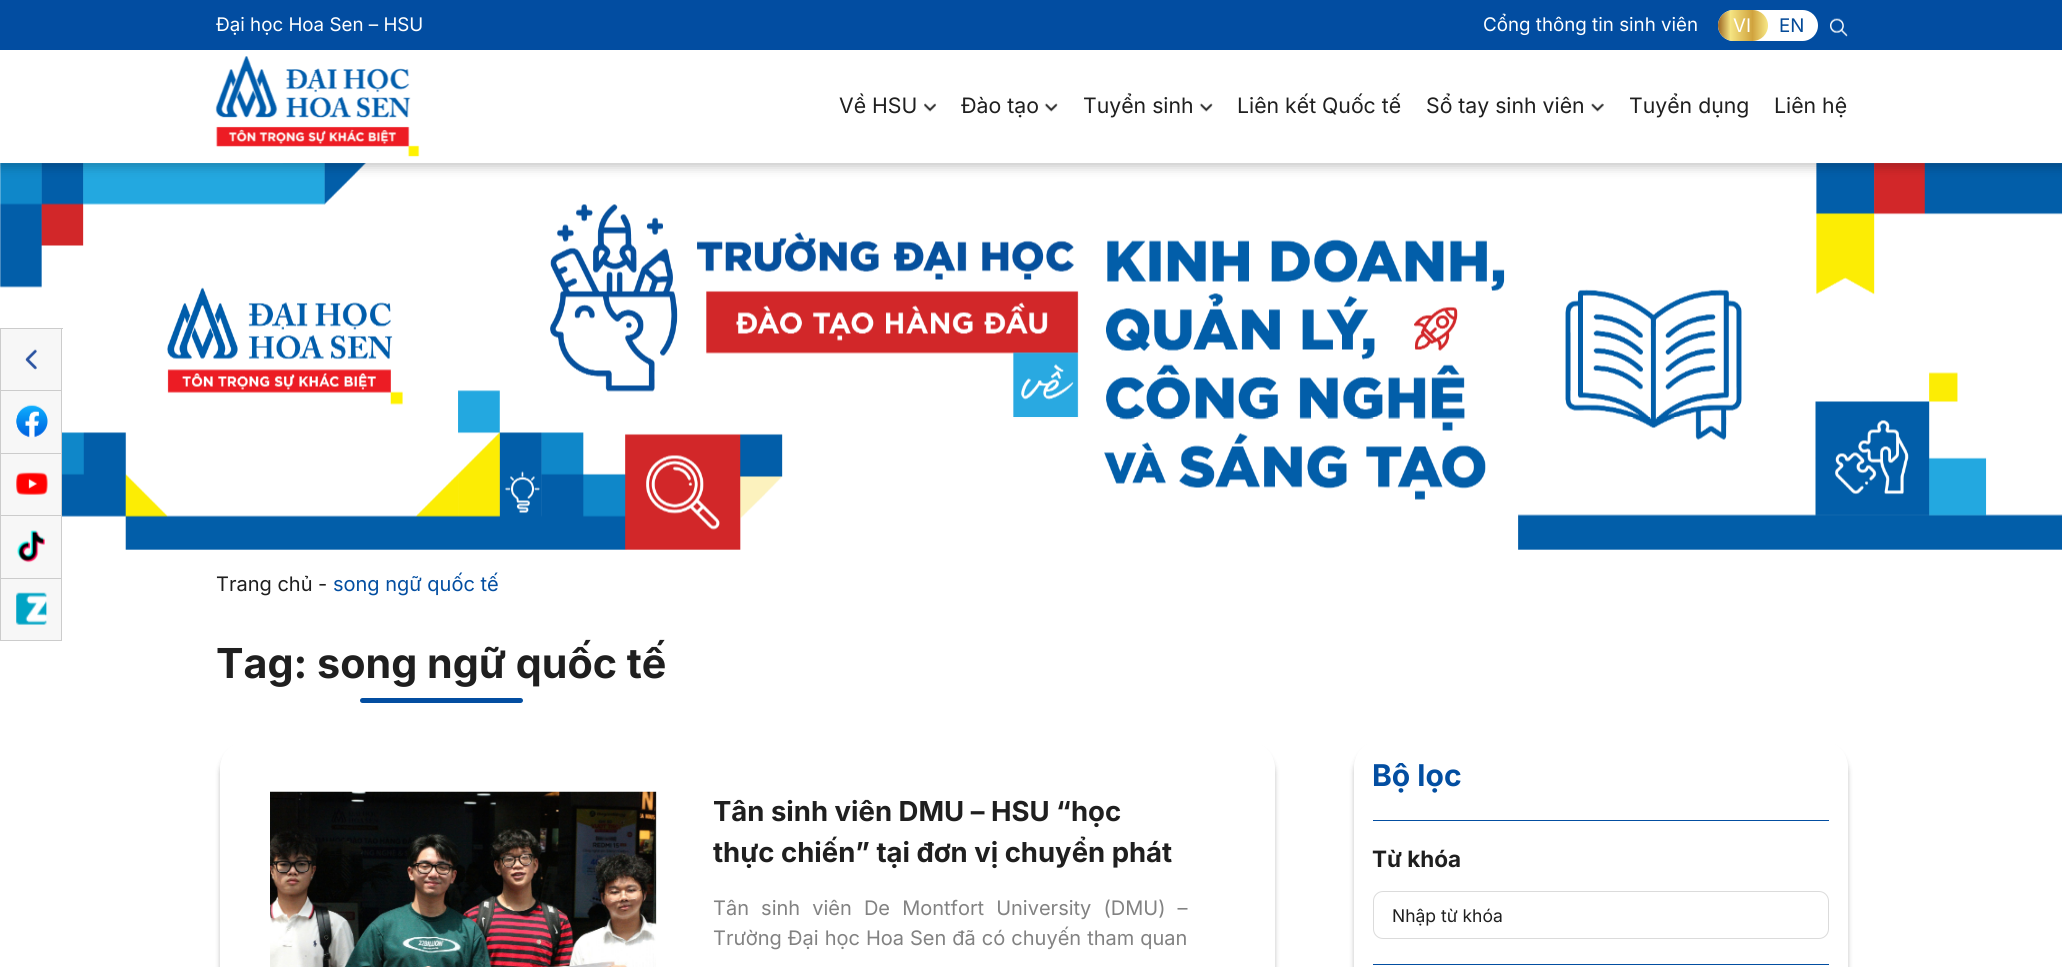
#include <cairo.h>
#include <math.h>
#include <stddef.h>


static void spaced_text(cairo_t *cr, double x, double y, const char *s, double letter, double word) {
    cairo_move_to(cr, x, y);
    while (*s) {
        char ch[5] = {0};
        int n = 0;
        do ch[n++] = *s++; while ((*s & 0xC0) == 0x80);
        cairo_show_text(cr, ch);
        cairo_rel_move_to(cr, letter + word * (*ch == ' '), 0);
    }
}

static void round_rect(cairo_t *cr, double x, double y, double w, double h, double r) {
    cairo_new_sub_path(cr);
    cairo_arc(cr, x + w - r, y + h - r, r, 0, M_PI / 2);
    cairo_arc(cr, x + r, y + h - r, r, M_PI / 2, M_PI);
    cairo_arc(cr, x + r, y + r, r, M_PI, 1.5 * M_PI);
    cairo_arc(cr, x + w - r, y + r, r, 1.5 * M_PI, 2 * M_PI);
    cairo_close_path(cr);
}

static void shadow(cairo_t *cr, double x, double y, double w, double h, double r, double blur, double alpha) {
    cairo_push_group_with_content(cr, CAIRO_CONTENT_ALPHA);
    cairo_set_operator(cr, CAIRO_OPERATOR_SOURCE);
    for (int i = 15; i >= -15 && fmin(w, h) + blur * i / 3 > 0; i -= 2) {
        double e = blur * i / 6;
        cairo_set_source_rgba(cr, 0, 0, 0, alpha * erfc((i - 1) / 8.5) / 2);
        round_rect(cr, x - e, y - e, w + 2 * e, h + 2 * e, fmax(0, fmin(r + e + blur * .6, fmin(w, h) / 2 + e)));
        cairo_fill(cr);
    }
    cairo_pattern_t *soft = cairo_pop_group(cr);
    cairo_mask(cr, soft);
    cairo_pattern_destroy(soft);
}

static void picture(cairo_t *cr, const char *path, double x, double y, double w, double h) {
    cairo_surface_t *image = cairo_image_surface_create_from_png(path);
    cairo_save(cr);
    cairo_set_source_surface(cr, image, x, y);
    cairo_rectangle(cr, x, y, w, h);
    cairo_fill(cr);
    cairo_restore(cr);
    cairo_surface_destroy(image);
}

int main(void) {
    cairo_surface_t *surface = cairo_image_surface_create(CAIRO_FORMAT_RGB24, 2062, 967);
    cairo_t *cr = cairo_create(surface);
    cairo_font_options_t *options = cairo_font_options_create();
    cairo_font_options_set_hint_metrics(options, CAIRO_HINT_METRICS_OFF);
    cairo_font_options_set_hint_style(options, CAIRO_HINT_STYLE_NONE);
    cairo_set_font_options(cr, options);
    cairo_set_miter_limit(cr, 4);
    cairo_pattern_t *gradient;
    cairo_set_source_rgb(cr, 1, 1, 1);
    cairo_paint(cr);
    picture(cr, "img6.png", 0, 163, 2062, 387);
    cairo_set_source_rgb(cr, 0, 0, 0);
    shadow(cr, 0, 4, 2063, 162, 0, 6, 0.25);
    cairo_set_source_rgb(cr, 1, 1, 1);
    cairo_rectangle(cr, 0, 50, 2062, 113);
    cairo_fill(cr);
    cairo_set_source_rgb(cr, 0.008, 0.302, 0.631);
    cairo_rectangle(cr, 0, 0, 2062, 50);
    cairo_fill(cr);
    cairo_select_font_face(cr, "Inter", CAIRO_FONT_SLANT_NORMAL, CAIRO_FONT_WEIGHT_NORMAL);
    cairo_set_font_size(cr, 18.75);
    cairo_set_source_rgb(cr, 1, 1, 1);
    cairo_move_to(cr, 216, 31);
    cairo_show_text(cr, "Đại học Hoa Sen – HSU");
    cairo_move_to(cr, 1483, 31);
    cairo_show_text(cr, "Cổng thông tin sinh viên");
    round_rect(cr, 1718, 10, 100, 31, 15.5);
    cairo_fill(cr);
    gradient = cairo_pattern_create_linear(1718, 26, 1768, 26);
    cairo_pattern_add_color_stop_rgba(gradient, 0.02, 0.635, 0.435, 0.161, 1);
    cairo_pattern_add_color_stop_rgba(gradient, 0.25, 0.961, 0.894, 0.51, 1);
    cairo_pattern_add_color_stop_rgba(gradient, 0.69, 0.816, 0.639, 0.243, 1);
    cairo_pattern_add_color_stop_rgba(gradient, 0.98, 0.961, 0.894, 0.51, 1);
    cairo_set_source(cr, gradient);
    cairo_pattern_destroy(gradient);
    round_rect(cr, 1718, 10, 50, 31, 15.5);
    cairo_fill(cr);
    cairo_set_source_rgb(cr, 1, 1, 1);
    cairo_move_to(cr, 1733, 32);
    cairo_show_text(cr, "VI");
    cairo_set_source_rgb(cr, 0.016, 0.29, 0.596);
    cairo_move_to(cr, 1779, 32);
    cairo_show_text(cr, "EN");
    picture(cr, "img1.png", 1830, 18, 18, 19);
    picture(cr, "img2.png", 215, 56, 205, 101);
    cairo_set_font_size(cr, 21.25);
    cairo_set_source_rgb(cr, 0.122, 0.122, 0.122);
    cairo_move_to(cr, 839, 113);
    cairo_show_text(cr, "Về HSU");
    picture(cr, "img3.png", 924, 103, 13, 9);
    cairo_move_to(cr, 961, 113);
    cairo_show_text(cr, "Đào tạo");
    picture(cr, "img4.png", 1044, 103, 14, 9);
    cairo_move_to(cr, 1083, 113);
    cairo_show_text(cr, "Tuyển sinh");
    picture(cr, "img4.png", 1199, 103, 14, 9);
    cairo_move_to(cr, 1237, 113);
    cairo_show_text(cr, "Liên kết Quốc tế");
    cairo_move_to(cr, 1426, 113);
    cairo_show_text(cr, "Sổ tay sinh viên");
    picture(cr, "img5.png", 1591, 103, 13, 9);
    cairo_move_to(cr, 1629, 113);
    cairo_show_text(cr, "Tuyển dụng");
    cairo_move_to(cr, 1774, 113);
    cairo_show_text(cr, "Liên hệ");
    cairo_set_source_rgb(cr, 0.8, 0.8, 0.8);
    cairo_rectangle(cr, 0, 328, 63, 1);
    cairo_fill(cr);
    cairo_rectangle(cr, 61, 328, 1, 313);
    cairo_fill(cr);
    cairo_rectangle(cr, 0, 328, 1, 313);
    cairo_fill(cr);
    cairo_set_source_rgb(cr, 0.965, 0.965, 0.965);
    cairo_rectangle(cr, 1, 329, 60, 61);
    cairo_fill(cr);
    cairo_set_source_rgb(cr, 0.8, 0.8, 0.8);
    cairo_rectangle(cr, 1, 390, 60, 1);
    cairo_fill(cr);
    picture(cr, "img7.png", 25, 349, 12, 21);
    cairo_rectangle(cr, 1, 453, 60, 1);
    cairo_fill(cr);
    cairo_set_source_rgb(cr, 0.965, 0.965, 0.965);
    cairo_rectangle(cr, 1, 391, 60, 62);
    cairo_fill(cr);
    picture(cr, "img8.png", 16, 404, 32, 34);
    cairo_set_source_rgb(cr, 0.8, 0.8, 0.8);
    cairo_rectangle(cr, 1, 515, 60, 1);
    cairo_fill(cr);
    cairo_set_source_rgb(cr, 0.965, 0.965, 0.965);
    cairo_rectangle(cr, 1, 454, 60, 61);
    cairo_fill(cr);
    picture(cr, "img9.png", 16, 472, 32, 23);
    cairo_set_source_rgb(cr, 0.8, 0.8, 0.8);
    cairo_rectangle(cr, 1, 578, 60, 1);
    cairo_fill(cr);
    cairo_set_source_rgb(cr, 0.965, 0.965, 0.965);
    cairo_rectangle(cr, 1, 516, 60, 62);
    cairo_fill(cr);
    picture(cr, "img10.png", 17, 530, 28, 33);
    cairo_set_source_rgb(cr, 0.8, 0.8, 0.8);
    cairo_rectangle(cr, 1, 640, 60, 1);
    cairo_fill(cr);
    cairo_set_source_rgb(cr, 0.965, 0.965, 0.965);
    cairo_rectangle(cr, 1, 579, 60, 61);
    cairo_fill(cr);
    picture(cr, "img11.png", 16, 592, 31, 33);
    cairo_set_font_size(cr, 20);
    cairo_set_source_rgb(cr, 0.122, 0.122, 0.122);
    cairo_move_to(cr, 216, 591);
    cairo_show_text(cr, "Trang chủ -");
    cairo_set_source_rgb(cr, 0.012, 0.306, 0.631);
    cairo_move_to(cr, 333, 591);
    cairo_show_text(cr, "song ngữ quốc tế");
    cairo_select_font_face(cr, "Inter", CAIRO_FONT_SLANT_NORMAL, CAIRO_FONT_WEIGHT_BOLD);
    cairo_set_font_size(cr, 41.25);
    cairo_set_source_rgb(cr, 0.122, 0.122, 0.122);
    cairo_move_to(cr, 216, 678);
    cairo_show_text(cr, "Tag: song ngữ quốc tế");
    cairo_set_source_rgb(cr, 0.012, 0.306, 0.631);
    round_rect(cr, 360, 698, 163, 5, 2.5);
    cairo_fill(cr);
    cairo_save(cr);
    cairo_set_fill_rule(cr, CAIRO_FILL_RULE_EVEN_ODD);
    cairo_new_path(cr);
    cairo_move_to(cr, 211, 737);
    cairo_line_to(cr, 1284, 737);
    cairo_line_to(cr, 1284, 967);
    cairo_line_to(cr, 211, 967);
    cairo_close_path(cr);
    cairo_move_to(cr, 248, 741);
    cairo_line_to(cr, 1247, 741);
    cairo_curve_to(cr, 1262.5, 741, 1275, 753.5, 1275, 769);
    cairo_line_to(cr, 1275, 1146);
    cairo_curve_to(cr, 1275, 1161.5, 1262.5, 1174, 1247, 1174);
    cairo_line_to(cr, 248, 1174);
    cairo_curve_to(cr, 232.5, 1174, 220, 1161.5, 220, 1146);
    cairo_line_to(cr, 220, 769);
    cairo_curve_to(cr, 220, 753.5, 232.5, 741, 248, 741);
    cairo_close_path(cr);
    cairo_clip(cr);
    cairo_set_source_rgb(cr, 0, 0, 0);
    shadow(cr, 220, 746, 1055, 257, 28, 2.5, 0.25);
    cairo_restore(cr);
    picture(cr, "img12.png", 270, 791, 387, 176);
    cairo_set_font_size(cr, 27.5);
    cairo_set_source_rgb(cr, 0.122, 0.122, 0.122);
    cairo_move_to(cr, 713, 821);
    cairo_show_text(cr, "Tân sinh viên DMU – HSU “học");
    cairo_save(cr);
    cairo_rectangle(cr, 713, 791, 473, 83);
    cairo_clip(cr);
    cairo_move_to(cr, 713, 862);
    cairo_show_text(cr, "thực chiến” tại đơn vị chuyển phát");
    cairo_restore(cr);
    cairo_select_font_face(cr, "Inter", CAIRO_FONT_SLANT_NORMAL, CAIRO_FONT_WEIGHT_NORMAL);
    cairo_set_font_size(cr, 20);
    cairo_set_source_rgb(cr, 0.51, 0.51, 0.51);
    spaced_text(cr, 713, 915, "Tân sinh viên De Montfort University (DMU) –", 0, 6.5);
    spaced_text(cr, 713, 945, "Trường Đại học Hoa Sen đã có chuyến tham quan", 0, 0.4);
    cairo_save(cr);
    cairo_set_fill_rule(cr, CAIRO_FILL_RULE_EVEN_ODD);
    cairo_new_path(cr);
    cairo_move_to(cr, 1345, 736);
    cairo_line_to(cr, 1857, 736);
    cairo_line_to(cr, 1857, 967);
    cairo_line_to(cr, 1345, 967);
    cairo_close_path(cr);
    cairo_move_to(cr, 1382, 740);
    cairo_line_to(cr, 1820, 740);
    cairo_curve_to(cr, 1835.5, 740, 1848, 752.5, 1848, 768);
    cairo_line_to(cr, 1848, 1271);
    cairo_curve_to(cr, 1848, 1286.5, 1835.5, 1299, 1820, 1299);
    cairo_line_to(cr, 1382, 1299);
    cairo_curve_to(cr, 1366.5, 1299, 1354, 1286.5, 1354, 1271);
    cairo_line_to(cr, 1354, 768);
    cairo_curve_to(cr, 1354, 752.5, 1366.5, 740, 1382, 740);
    cairo_close_path(cr);
    cairo_clip(cr);
    cairo_set_source_rgb(cr, 0, 0, 0);
    shadow(cr, 1354, 745, 494, 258, 28, 2.5, 0.25);
    cairo_restore(cr);
    cairo_select_font_face(cr, "Inter", CAIRO_FONT_SLANT_NORMAL, CAIRO_FONT_WEIGHT_BOLD);
    cairo_set_font_size(cr, 30);
    cairo_set_source_rgb(cr, 0.012, 0.306, 0.631);
    cairo_move_to(cr, 1372, 786);
    cairo_show_text(cr, "Bộ lọc");
    cairo_rectangle(cr, 1373, 820, 456, 1);
    cairo_fill(cr);
    cairo_set_font_size(cr, 22.5);
    cairo_set_source_rgb(cr, 0.122, 0.122, 0.122);
    cairo_move_to(cr, 1372, 867);
    cairo_show_text(cr, "Từ khóa");
    round_rect(cr, 1373.5, 891.5, 455, 47, 9.5);
    cairo_set_source_rgb(cr, 0.859, 0.859, 0.859);
    cairo_set_line_width(cr, 1);
    cairo_stroke(cr);
    cairo_select_font_face(cr, "Inter", CAIRO_FONT_SLANT_NORMAL, CAIRO_FONT_WEIGHT_NORMAL);
    cairo_set_font_size(cr, 17.5);
    cairo_set_source_rgb(cr, 0.122, 0.122, 0.122);
    cairo_move_to(cr, 1392, 922);
    cairo_show_text(cr, "Nhập từ khóa");
    cairo_set_source_rgb(cr, 0.012, 0.306, 0.631);
    cairo_rectangle(cr, 1373, 964, 456, 1);
    cairo_fill(cr);
    cairo_surface_write_to_png(surface, "page.png");
    cairo_font_options_destroy(options);
    cairo_destroy(cr);
    cairo_surface_destroy(surface);
    return 0;
}
